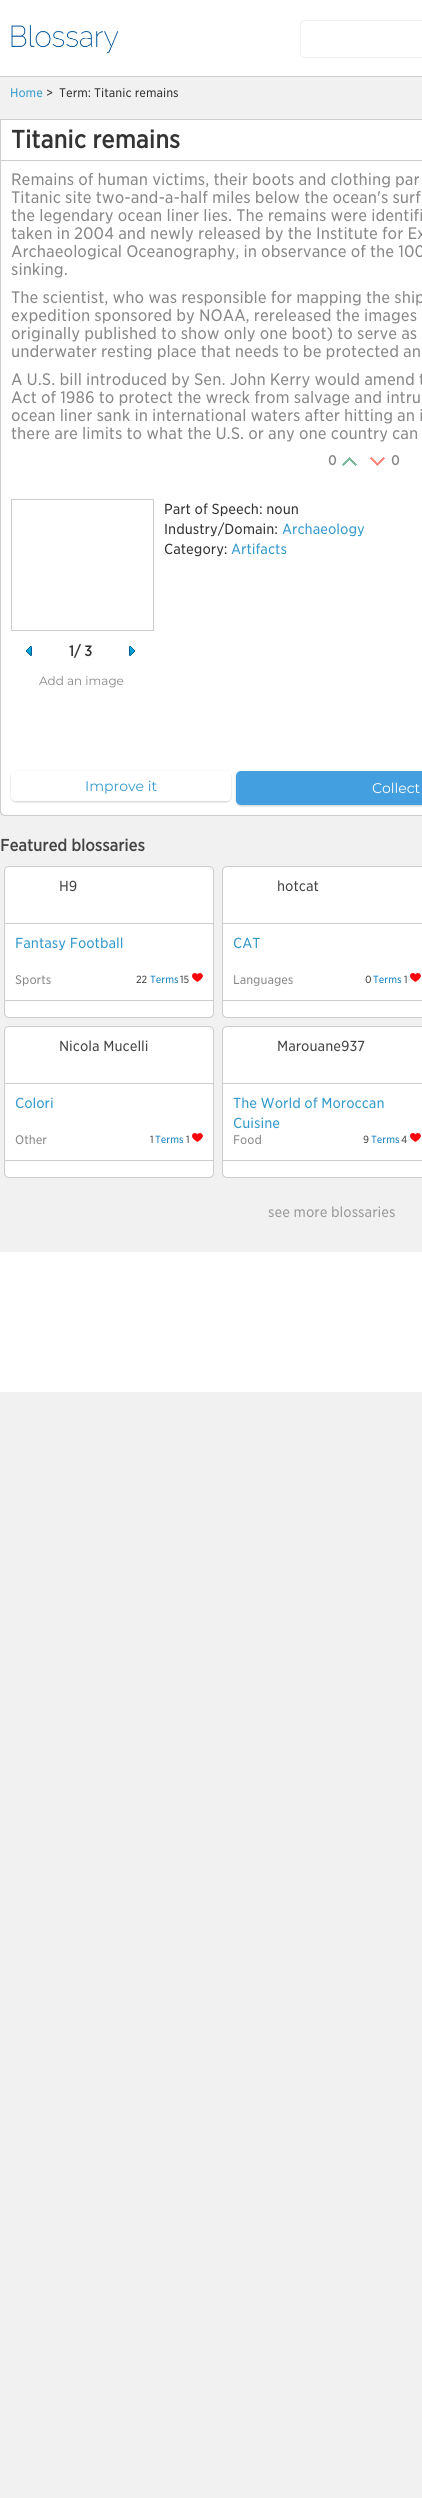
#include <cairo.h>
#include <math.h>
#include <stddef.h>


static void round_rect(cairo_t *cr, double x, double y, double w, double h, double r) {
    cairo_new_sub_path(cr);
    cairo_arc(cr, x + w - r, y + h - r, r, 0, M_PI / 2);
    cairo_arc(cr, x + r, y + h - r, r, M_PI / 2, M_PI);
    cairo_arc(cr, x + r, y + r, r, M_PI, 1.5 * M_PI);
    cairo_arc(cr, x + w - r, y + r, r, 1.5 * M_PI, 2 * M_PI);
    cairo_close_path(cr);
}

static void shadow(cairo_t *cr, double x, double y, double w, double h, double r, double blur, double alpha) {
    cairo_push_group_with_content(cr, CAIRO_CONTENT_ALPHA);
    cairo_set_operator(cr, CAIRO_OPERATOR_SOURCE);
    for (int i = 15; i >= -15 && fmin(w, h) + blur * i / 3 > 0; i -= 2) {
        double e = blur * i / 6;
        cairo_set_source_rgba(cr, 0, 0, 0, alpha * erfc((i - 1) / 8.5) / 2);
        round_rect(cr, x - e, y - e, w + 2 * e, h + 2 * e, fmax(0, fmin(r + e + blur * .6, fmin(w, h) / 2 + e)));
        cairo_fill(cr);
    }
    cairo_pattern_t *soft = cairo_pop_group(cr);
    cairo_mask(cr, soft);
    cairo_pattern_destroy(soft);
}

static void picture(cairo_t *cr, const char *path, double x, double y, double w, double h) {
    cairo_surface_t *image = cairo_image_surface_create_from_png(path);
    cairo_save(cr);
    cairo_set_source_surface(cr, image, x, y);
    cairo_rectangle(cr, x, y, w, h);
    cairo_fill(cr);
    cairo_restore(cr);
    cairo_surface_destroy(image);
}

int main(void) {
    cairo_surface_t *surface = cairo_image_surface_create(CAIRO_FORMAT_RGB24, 422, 2498);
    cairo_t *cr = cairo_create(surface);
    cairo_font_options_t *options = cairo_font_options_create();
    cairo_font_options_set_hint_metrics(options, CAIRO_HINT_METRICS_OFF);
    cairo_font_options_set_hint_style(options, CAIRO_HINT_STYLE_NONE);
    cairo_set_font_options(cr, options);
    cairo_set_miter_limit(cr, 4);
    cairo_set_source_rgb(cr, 0.945, 0.945, 0.945);
    cairo_paint(cr);
    cairo_set_source_rgb(cr, 1, 1, 1);
    cairo_rectangle(cr, 0, 0, 422, 76);
    cairo_fill(cr);
    cairo_set_source_rgb(cr, 0.804, 0.804, 0.804);
    cairo_rectangle(cr, 0, 76, 422, 1);
    cairo_fill(cr);
    picture(cr, "img1.png", 11, 25, 108, 28);
    round_rect(cr, 300.5, 20.5, 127, 37, 4.5);
    cairo_set_source_rgb(cr, 0.945, 0.945, 0.945);
    cairo_set_line_width(cr, 1);
    cairo_stroke(cr);
    cairo_select_font_face(cr, "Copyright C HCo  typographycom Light", CAIRO_FONT_SLANT_NORMAL, CAIRO_FONT_WEIGHT_NORMAL);
    cairo_set_font_size(cr, 12);
    cairo_set_source_rgb(cr, 0.2, 0.6, 0.8);
    cairo_move_to(cr, 10, 97);
    cairo_show_text(cr, "Home");
    cairo_set_source_rgb(cr, 0.2, 0.2, 0.2);
    cairo_move_to(cr, 46, 97);
    cairo_show_text(cr, ">");
    cairo_move_to(cr, 59, 97);
    cairo_show_text(cr, "Term: Titanic remains");
    cairo_set_source_rgb(cr, 1, 1, 1);
    cairo_rectangle(cr, 1, 120, 421, 40);
    cairo_fill(cr);
    cairo_set_source_rgb(cr, 0.804, 0.804, 0.804);
    cairo_rectangle(cr, 0, 119, 422, 1);
    cairo_fill(cr);
    cairo_rectangle(cr, 0, 119, 1, 41);
    cairo_fill(cr);
    cairo_select_font_face(cr, "Copyright C HCo  typographycom", CAIRO_FONT_SLANT_NORMAL, CAIRO_FONT_WEIGHT_BOLD);
    cairo_set_font_size(cr, 24);
    cairo_set_source_rgb(cr, 0.2, 0.2, 0.2);
    cairo_move_to(cr, 11, 148);
    cairo_show_text(cr, "Titanic remains");
    cairo_set_source_rgb(cr, 1, 1, 1);
    cairo_rectangle(cr, 1, 161, 421, 549);
    cairo_fill(cr);
    cairo_set_source_rgb(cr, 0.804, 0.804, 0.804);
    cairo_rectangle(cr, 0, 160, 422, 1);
    cairo_fill(cr);
    cairo_rectangle(cr, 0, 160, 1, 550);
    cairo_fill(cr);
    cairo_select_font_face(cr, "Copyright C HCo  typographycom Light", CAIRO_FONT_SLANT_NORMAL, CAIRO_FONT_WEIGHT_NORMAL);
    cairo_set_font_size(cr, 16);
    cairo_set_source_rgb(cr, 0.533, 0.533, 0.533);
    cairo_move_to(cr, 11, 185);
    cairo_show_text(cr, "Remains of human victims, their boots and clothing par");
    cairo_move_to(cr, 11, 203);
    cairo_show_text(cr, "Titanic site two-and-a-half miles below the ocean's surf");
    cairo_move_to(cr, 11, 221);
    cairo_show_text(cr, "the legendary ocean liner lies. The remains were identifi");
    cairo_move_to(cr, 11, 239);
    cairo_show_text(cr, "taken in 2004 and newly released by the Institute for Ex");
    cairo_move_to(cr, 11, 257);
    cairo_show_text(cr, "Archaeological Oceanography, in observance of the 100");
    cairo_move_to(cr, 11, 275);
    cairo_show_text(cr, "sinking.");
    cairo_move_to(cr, 11, 303);
    cairo_show_text(cr, "The scientist, who was responsible for mapping the ship");
    cairo_move_to(cr, 11, 321);
    cairo_show_text(cr, "expedition sponsored by NOAA, rereleased the images");
    cairo_move_to(cr, 11, 339);
    cairo_show_text(cr, "originally published to show only one boot) to serve as");
    cairo_move_to(cr, 11, 357);
    cairo_show_text(cr, "underwater resting place that needs to be protected an");
    cairo_move_to(cr, 11, 385);
    cairo_show_text(cr, "A U.S. bill introduced by Sen. John Kerry would amend t");
    cairo_move_to(cr, 11, 403);
    cairo_show_text(cr, "Act of 1986 to protect the wreck from salvage and intru");
    cairo_move_to(cr, 11, 421);
    cairo_show_text(cr, "ocean liner sank in international waters after hitting an i");
    cairo_move_to(cr, 11, 439);
    cairo_show_text(cr, "there are limits to what the U.S. or any one country can");
    cairo_select_font_face(cr, "Copyright C HCo  typographycom", CAIRO_FONT_SLANT_NORMAL, CAIRO_FONT_WEIGHT_BOLD);
    cairo_set_font_size(cr, 13);
    cairo_move_to(cr, 328, 465);
    cairo_show_text(cr, "0");
    picture(cr, "img2.png", 342, 457, 15, 9);
    picture(cr, "img3.png", 370, 457, 15, 9);
    cairo_move_to(cr, 391, 465);
    cairo_show_text(cr, "0");
    cairo_select_font_face(cr, "Copyright C HCo  typographycom Light", CAIRO_FONT_SLANT_NORMAL, CAIRO_FONT_WEIGHT_NORMAL);
    cairo_set_font_size(cr, 14);
    cairo_set_source_rgb(cr, 0.2, 0.2, 0.2);
    cairo_move_to(cr, 164, 514);
    cairo_show_text(cr, "Part of Speech: noun");
    cairo_move_to(cr, 164, 534);
    cairo_show_text(cr, "Industry/Domain:");
    cairo_set_source_rgb(cr, 0.2, 0.6, 0.8);
    cairo_move_to(cr, 282, 534);
    cairo_show_text(cr, "Archaeology");
    cairo_set_source_rgb(cr, 0.2, 0.2, 0.2);
    cairo_move_to(cr, 164, 554);
    cairo_show_text(cr, "Category:");
    cairo_set_source_rgb(cr, 0.2, 0.6, 0.8);
    cairo_move_to(cr, 231, 554);
    cairo_show_text(cr, "Artifacts");
    cairo_rectangle(cr, 11.5, 499.5, 142, 131);
    cairo_set_source_rgb(cr, 0.8, 0.8, 0.8);
    cairo_stroke(cr);
    picture(cr, "img4.png", 26, 646, 6, 10);
    cairo_select_font_face(cr, "Copyright C HCo  typographycom", CAIRO_FONT_SLANT_NORMAL, CAIRO_FONT_WEIGHT_BOLD);
    cairo_set_source_rgb(cr, 0.2, 0.2, 0.2);
    cairo_move_to(cr, 69, 656);
    cairo_show_text(cr, "1/ 3");
    picture(cr, "img5.png", 129, 646, 6, 10);
    cairo_select_font_face(cr, "Montserrat", CAIRO_FONT_SLANT_NORMAL, CAIRO_FONT_WEIGHT_NORMAL);
    cairo_set_font_size(cr, 12);
    cairo_set_source_rgb(cr, 0.533, 0.533, 0.533);
    cairo_move_to(cr, 39, 685);
    cairo_show_text(cr, "Add an image");
    cairo_set_source_rgb(cr, 1, 1, 1);
    cairo_rectangle(cr, 1, 710, 421, 51);
    cairo_fill(cr);
    cairo_set_source_rgb(cr, 0.804, 0.804, 0.804);
    cairo_rectangle(cr, 0, 710, 1, 51);
    cairo_fill(cr);
    cairo_set_source_rgb(cr, 1, 1, 1);
    cairo_new_path(cr);
    cairo_move_to(cr, 1, 761);
    cairo_line_to(cr, 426, 761);
    cairo_line_to(cr, 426, 811);
    cairo_curve_to(cr, 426, 813, 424, 815, 422, 815);
    cairo_line_to(cr, 5, 815);
    cairo_curve_to(cr, 3, 815, 1, 813, 1, 811);
    cairo_close_path(cr);
    cairo_fill(cr);
    cairo_set_source_rgb(cr, 0.804, 0.804, 0.804);
    cairo_set_fill_rule(cr, CAIRO_FILL_RULE_EVEN_ODD);
    cairo_new_path(cr);
    cairo_move_to(cr, 0, 761);
    cairo_line_to(cr, 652, 761);
    cairo_line_to(cr, 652, 811);
    cairo_curve_to(cr, 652, 814, 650, 816, 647, 816);
    cairo_line_to(cr, 5, 816);
    cairo_curve_to(cr, 2, 816, 0, 814, 0, 811);
    cairo_close_path(cr);
    cairo_move_to(cr, 1, 761);
    cairo_line_to(cr, 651, 761);
    cairo_line_to(cr, 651, 811);
    cairo_curve_to(cr, 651, 813, 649, 815, 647, 815);
    cairo_line_to(cr, 5, 815);
    cairo_curve_to(cr, 3, 815, 1, 813, 1, 811);
    cairo_close_path(cr);
    cairo_fill(cr);
    cairo_save(cr);
    cairo_new_path(cr);
    cairo_move_to(cr, 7, 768);
    cairo_line_to(cr, 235, 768);
    cairo_line_to(cr, 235, 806);
    cairo_line_to(cr, 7, 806);
    cairo_close_path(cr);
    cairo_move_to(cr, 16, 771);
    cairo_line_to(cr, 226, 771);
    cairo_curve_to(cr, 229, 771, 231, 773, 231, 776);
    cairo_line_to(cr, 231, 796);
    cairo_curve_to(cr, 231, 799, 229, 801, 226, 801);
    cairo_line_to(cr, 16, 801);
    cairo_curve_to(cr, 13, 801, 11, 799, 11, 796);
    cairo_line_to(cr, 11, 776);
    cairo_curve_to(cr, 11, 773, 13, 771, 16, 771);
    cairo_close_path(cr);
    cairo_clip(cr);
    cairo_set_source_rgb(cr, 0, 0, 0);
    shadow(cr, 11, 772, 220, 30, 5, 1, 0.2);
    cairo_restore(cr);
    cairo_set_font_size(cr, 14);
    cairo_set_source_rgb(cr, 0.2, 0.6, 0.8);
    cairo_move_to(cr, 85, 791);
    cairo_show_text(cr, "Improve it");
    cairo_set_source_rgb(cr, 0, 0, 0);
    shadow(cr, 236, 772, 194, 34, 5, 1, 0.2);
    cairo_set_source_rgb(cr, 0.263, 0.624, 0.878);
    round_rect(cr, 236, 771, 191, 34, 5);
    cairo_fill(cr);
    cairo_set_source_rgb(cr, 1, 1, 1);
    cairo_move_to(cr, 372, 793);
    cairo_show_text(cr, "Collect");
    cairo_select_font_face(cr, "Copyright C HCo  typographycom", CAIRO_FONT_SLANT_NORMAL, CAIRO_FONT_WEIGHT_BOLD);
    cairo_set_font_size(cr, 16);
    cairo_set_source_rgb(cr, 0.267, 0.267, 0.267);
    cairo_move_to(cr, 0, 851);
    cairo_show_text(cr, "Featured blossaries");
    cairo_set_source_rgb(cr, 1, 1, 1);
    round_rect(cr, 4.5, 866.5, 209, 151, 4.5);
    cairo_fill_preserve(cr);
    cairo_set_source_rgb(cr, 0.804, 0.804, 0.804);
    cairo_stroke(cr);
    cairo_rectangle(cr, 5, 923, 208, 1);
    cairo_fill(cr);
    cairo_select_font_face(cr, "Copyright C HCo  typographycom Light", CAIRO_FONT_SLANT_NORMAL, CAIRO_FONT_WEIGHT_NORMAL);
    cairo_set_font_size(cr, 14);
    cairo_set_source_rgb(cr, 0.267, 0.267, 0.267);
    cairo_move_to(cr, 59, 891);
    cairo_show_text(cr, "H9");
    cairo_set_source_rgb(cr, 0.804, 0.804, 0.804);
    cairo_rectangle(cr, 5, 1000, 208, 1);
    cairo_fill(cr);
    cairo_set_source_rgb(cr, 0.2, 0.6, 0.8);
    cairo_move_to(cr, 15, 948);
    cairo_show_text(cr, "Fantasy Football");
    cairo_set_font_size(cr, 12);
    cairo_set_source_rgb(cr, 0.533, 0.533, 0.533);
    cairo_move_to(cr, 15, 984);
    cairo_show_text(cr, "Sports");
    cairo_set_font_size(cr, 10);
    cairo_set_source_rgb(cr, 0.267, 0.267, 0.267);
    cairo_move_to(cr, 136, 983);
    cairo_show_text(cr, "22");
    cairo_set_source_rgb(cr, 0.071, 0.498, 0.761);
    cairo_move_to(cr, 150, 983);
    cairo_show_text(cr, "Terms");
    cairo_set_source_rgb(cr, 0.267, 0.267, 0.267);
    cairo_move_to(cr, 180, 983);
    cairo_show_text(cr, "15");
    picture(cr, "img6.png", 192, 973, 11, 9);
    cairo_set_source_rgb(cr, 1, 1, 1);
    round_rect(cr, 222.5, 866.5, 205, 151, 4.5);
    cairo_fill_preserve(cr);
    cairo_set_source_rgb(cr, 0.804, 0.804, 0.804);
    cairo_stroke(cr);
    cairo_rectangle(cr, 223, 923, 199, 1);
    cairo_fill(cr);
    cairo_set_font_size(cr, 14);
    cairo_set_source_rgb(cr, 0.267, 0.267, 0.267);
    cairo_move_to(cr, 277, 891);
    cairo_show_text(cr, "hotcat");
    cairo_set_source_rgb(cr, 0.804, 0.804, 0.804);
    cairo_rectangle(cr, 223, 1000, 199, 1);
    cairo_fill(cr);
    cairo_set_source_rgb(cr, 0.2, 0.6, 0.8);
    cairo_move_to(cr, 233, 948);
    cairo_show_text(cr, "CAT");
    cairo_set_font_size(cr, 12);
    cairo_set_source_rgb(cr, 0.533, 0.533, 0.533);
    cairo_move_to(cr, 233, 984);
    cairo_show_text(cr, "Languages");
    cairo_set_font_size(cr, 10);
    cairo_set_source_rgb(cr, 0.267, 0.267, 0.267);
    cairo_move_to(cr, 365, 983);
    cairo_show_text(cr, "0");
    cairo_set_source_rgb(cr, 0.071, 0.498, 0.761);
    cairo_move_to(cr, 373, 983);
    cairo_show_text(cr, "Terms");
    cairo_set_source_rgb(cr, 0.267, 0.267, 0.267);
    cairo_move_to(cr, 404, 983);
    cairo_show_text(cr, "1");
    picture(cr, "img6.png", 410, 973, 11, 9);
    cairo_set_source_rgb(cr, 1, 1, 1);
    round_rect(cr, 4.5, 1026.5, 209, 151, 4.5);
    cairo_fill_preserve(cr);
    cairo_set_source_rgb(cr, 0.804, 0.804, 0.804);
    cairo_stroke(cr);
    cairo_rectangle(cr, 5, 1083, 208, 1);
    cairo_fill(cr);
    cairo_set_font_size(cr, 14);
    cairo_set_source_rgb(cr, 0.267, 0.267, 0.267);
    cairo_move_to(cr, 59, 1051);
    cairo_show_text(cr, "Nicola Mucelli");
    cairo_set_source_rgb(cr, 0.804, 0.804, 0.804);
    cairo_rectangle(cr, 5, 1160, 208, 1);
    cairo_fill(cr);
    cairo_set_source_rgb(cr, 0.2, 0.6, 0.8);
    cairo_move_to(cr, 15, 1108);
    cairo_show_text(cr, "Colori");
    cairo_set_font_size(cr, 12);
    cairo_set_source_rgb(cr, 0.533, 0.533, 0.533);
    cairo_move_to(cr, 15, 1144);
    cairo_show_text(cr, "Other");
    cairo_set_font_size(cr, 10);
    cairo_set_source_rgb(cr, 0.267, 0.267, 0.267);
    cairo_move_to(cr, 150, 1143);
    cairo_show_text(cr, "1");
    cairo_set_source_rgb(cr, 0.071, 0.498, 0.761);
    cairo_move_to(cr, 155, 1143);
    cairo_show_text(cr, "Terms");
    cairo_set_source_rgb(cr, 0.267, 0.267, 0.267);
    cairo_move_to(cr, 186, 1143);
    cairo_show_text(cr, "1");
    picture(cr, "img6.png", 192, 1133, 11, 9);
    cairo_set_source_rgb(cr, 1, 1, 1);
    round_rect(cr, 222.5, 1026.5, 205, 151, 4.5);
    cairo_fill_preserve(cr);
    cairo_set_source_rgb(cr, 0.804, 0.804, 0.804);
    cairo_stroke(cr);
    cairo_rectangle(cr, 223, 1083, 199, 1);
    cairo_fill(cr);
    cairo_set_font_size(cr, 14);
    cairo_set_source_rgb(cr, 0.267, 0.267, 0.267);
    cairo_move_to(cr, 277, 1051);
    cairo_show_text(cr, "Marouane937");
    cairo_set_source_rgb(cr, 0.804, 0.804, 0.804);
    cairo_rectangle(cr, 223, 1160, 199, 1);
    cairo_fill(cr);
    cairo_set_source_rgb(cr, 0.2, 0.6, 0.8);
    cairo_move_to(cr, 233, 1108);
    cairo_show_text(cr, "The World of Moroccan");
    cairo_move_to(cr, 233, 1128);
    cairo_show_text(cr, "Cuisine");
    cairo_set_font_size(cr, 12);
    cairo_set_source_rgb(cr, 0.533, 0.533, 0.533);
    cairo_move_to(cr, 233, 1144);
    cairo_show_text(cr, "Food");
    cairo_set_font_size(cr, 10);
    cairo_set_source_rgb(cr, 0.267, 0.267, 0.267);
    cairo_move_to(cr, 363, 1143);
    cairo_show_text(cr, "9");
    cairo_set_source_rgb(cr, 0.071, 0.498, 0.761);
    cairo_move_to(cr, 371, 1143);
    cairo_show_text(cr, "Terms");
    cairo_set_source_rgb(cr, 0.267, 0.267, 0.267);
    cairo_move_to(cr, 401, 1143);
    cairo_show_text(cr, "4");
    picture(cr, "img6.png", 410, 1133, 11, 9);
    cairo_set_font_size(cr, 14);
    cairo_set_source_rgb(cr, 0.6, 0.6, 0.6);
    cairo_move_to(cr, 268, 1217);
    cairo_show_text(cr, "see more blossaries");
    cairo_set_source_rgb(cr, 1, 1, 1);
    cairo_rectangle(cr, 0, 1252, 422, 140);
    cairo_fill(cr);
    cairo_surface_write_to_png(surface, "page.png");
    cairo_font_options_destroy(options);
    cairo_destroy(cr);
    cairo_surface_destroy(surface);
    return 0;
}
